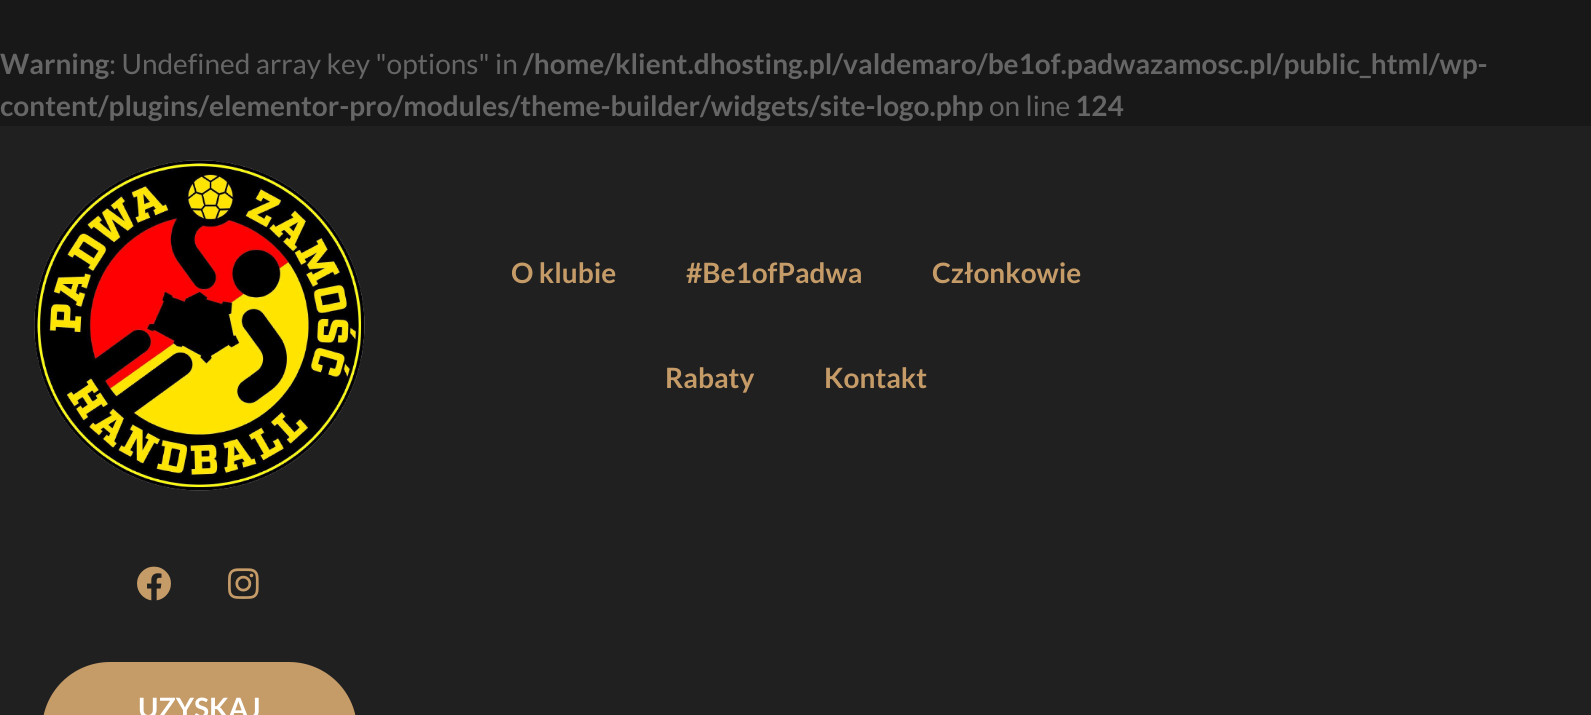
#include <cairo.h>
#include <math.h>
#include <stddef.h>


static void round_rect(cairo_t *cr, double x, double y, double w, double h, double r) {
    cairo_new_sub_path(cr);
    cairo_arc(cr, x + w - r, y + h - r, r, 0, M_PI / 2);
    cairo_arc(cr, x + r, y + h - r, r, M_PI / 2, M_PI);
    cairo_arc(cr, x + r, y + r, r, M_PI, 1.5 * M_PI);
    cairo_arc(cr, x + w - r, y + r, r, 1.5 * M_PI, 2 * M_PI);
    cairo_close_path(cr);
}

static void picture(cairo_t *cr, const char *path, double x, double y, double w, double h) {
    cairo_surface_t *image = cairo_image_surface_create_from_png(path);
    cairo_save(cr);
    cairo_set_source_surface(cr, image, x, y);
    cairo_rectangle(cr, x, y, w, h);
    cairo_fill(cr);
    cairo_restore(cr);
    cairo_surface_destroy(image);
}

int main(void) {
    cairo_surface_t *surface = cairo_image_surface_create(CAIRO_FORMAT_RGB24, 1591, 715);
    cairo_t *cr = cairo_create(surface);
    cairo_font_options_t *options = cairo_font_options_create();
    cairo_font_options_set_hint_metrics(options, CAIRO_HINT_METRICS_OFF);
    cairo_font_options_set_hint_style(options, CAIRO_HINT_STYLE_NONE);
    cairo_set_font_options(cr, options);
    cairo_set_miter_limit(cr, 4);
    cairo_set_source_rgb(cr, 0.094, 0.094, 0.094);
    cairo_paint(cr);
    cairo_select_font_face(cr, "Lato", CAIRO_FONT_SLANT_NORMAL, CAIRO_FONT_WEIGHT_BOLD);
    cairo_set_font_size(cr, 28);
    cairo_set_source_rgb(cr, 0.4, 0.4, 0.4);
    cairo_move_to(cr, 0, 74);
    cairo_show_text(cr, "Warning");
    cairo_select_font_face(cr, "Lato", CAIRO_FONT_SLANT_NORMAL, CAIRO_FONT_WEIGHT_NORMAL);
    cairo_move_to(cr, 109, 74);
    cairo_show_text(cr, ": Undefined array key \"options\" in");
    cairo_select_font_face(cr, "Lato", CAIRO_FONT_SLANT_NORMAL, CAIRO_FONT_WEIGHT_BOLD);
    cairo_move_to(cr, 523, 74);
    cairo_show_text(cr, "/home/klient.dhosting.pl/valdemaro/be1of.padwazamosc.pl/public_html/wp-");
    cairo_move_to(cr, 0, 116);
    cairo_show_text(cr, "content/plugins/elementor-pro/modules/theme-builder/widgets/site-logo.php");
    cairo_select_font_face(cr, "Lato", CAIRO_FONT_SLANT_NORMAL, CAIRO_FONT_WEIGHT_NORMAL);
    cairo_move_to(cr, 989, 116);
    cairo_show_text(cr, "on line");
    cairo_select_font_face(cr, "Lato", CAIRO_FONT_SLANT_NORMAL, CAIRO_FONT_WEIGHT_BOLD);
    cairo_move_to(cr, 1075, 116);
    cairo_show_text(cr, "124");
    cairo_set_source_rgb(cr, 0.125, 0.125, 0.125);
    cairo_rectangle(cr, 0, 126, 1591, 589);
    cairo_fill(cr);
    picture(cr, "img1.png", 34, 160, 331, 331);
    cairo_set_source_rgb(cr, 0.773, 0.608, 0.408);
    cairo_move_to(cr, 511, 283);
    cairo_show_text(cr, "O klubie");
    cairo_move_to(cr, 686, 283);
    cairo_show_text(cr, "#Be1ofPadwa");
    cairo_move_to(cr, 932, 283);
    cairo_show_text(cr, "Członkowie");
    cairo_move_to(cr, 665, 388);
    cairo_show_text(cr, "Rabaty");
    cairo_move_to(cr, 824, 388);
    cairo_show_text(cr, "Kontakt");
    picture(cr, "img2.png", 137, 566, 34, 35);
    picture(cr, "img3.png", 228, 568, 31, 31);
    round_rect(cr, 44.5, 664.5, 310, 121, 65.5);
    cairo_fill_preserve(cr);
    cairo_set_line_width(cr, 5);
    cairo_stroke(cr);
    cairo_set_source_rgb(cr, 1, 1, 1);
    cairo_move_to(cr, 138, 718);
    cairo_show_text(cr, "UZYSKAJ");
    cairo_surface_write_to_png(surface, "page.png");
    cairo_font_options_destroy(options);
    cairo_destroy(cr);
    cairo_surface_destroy(surface);
    return 0;
}
